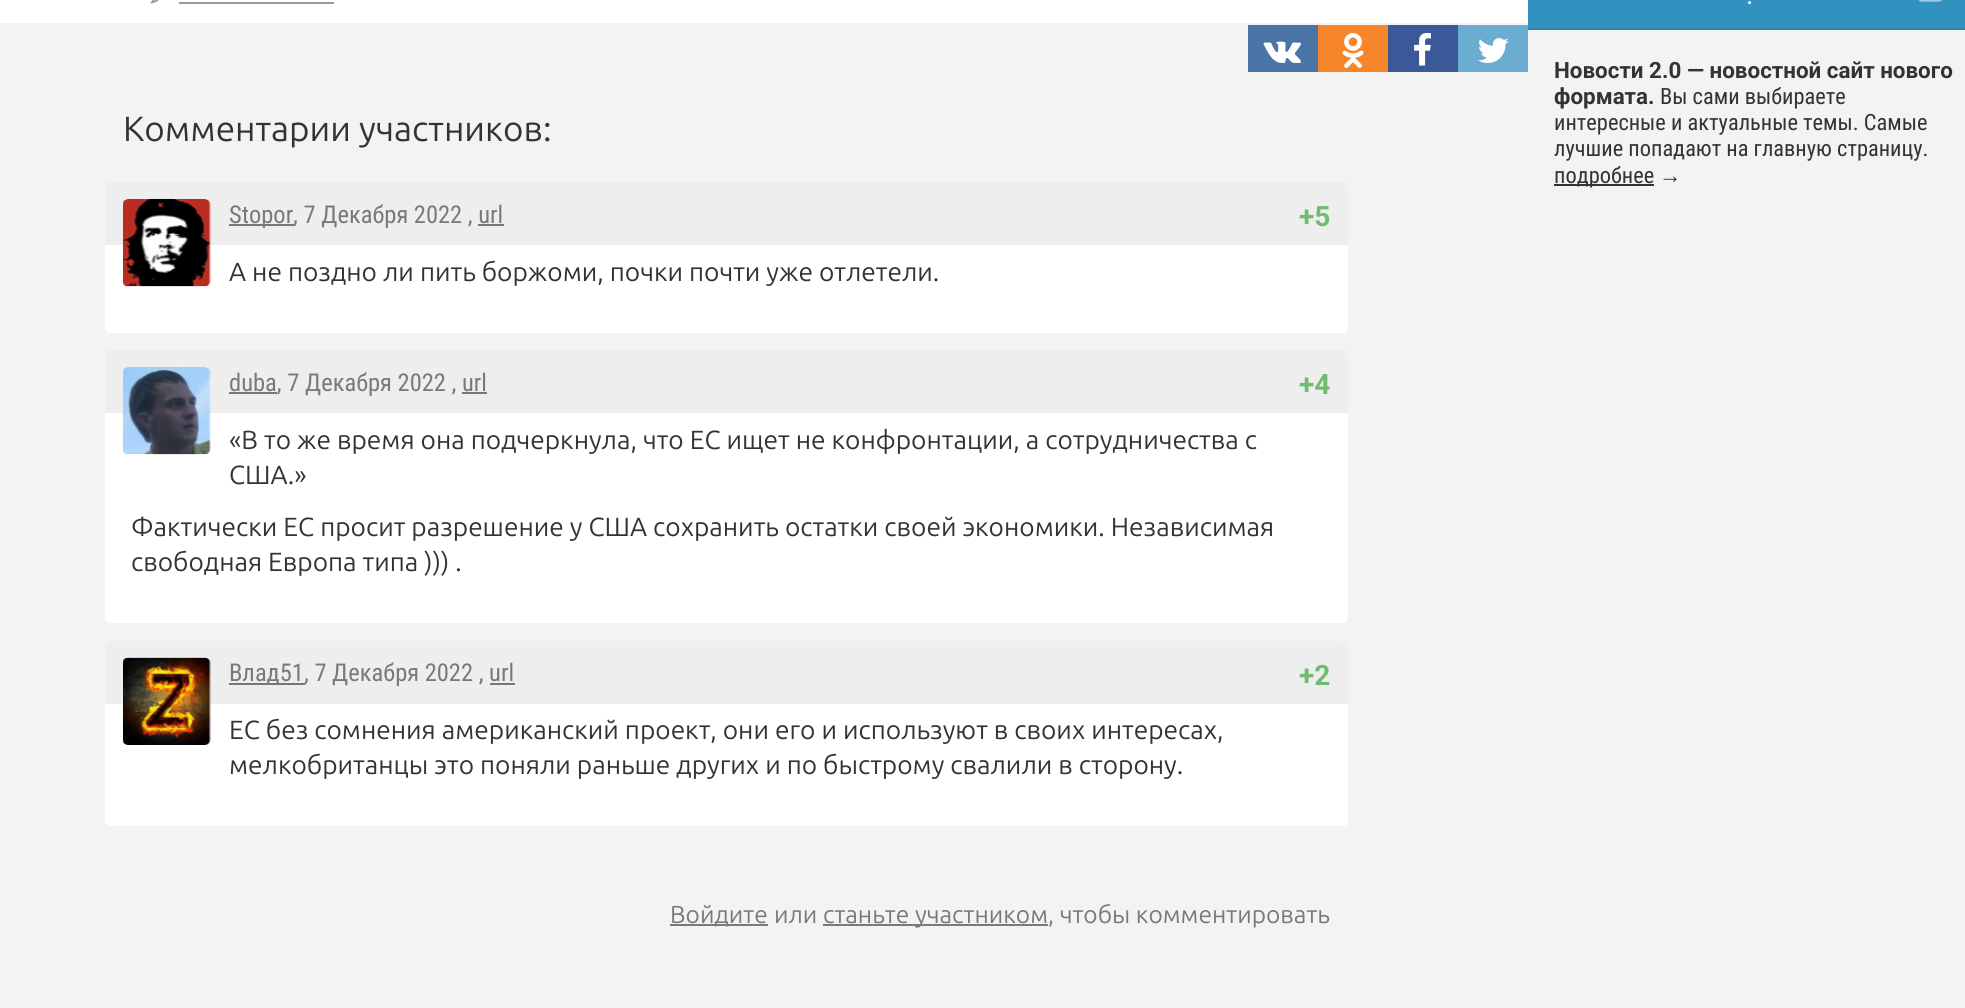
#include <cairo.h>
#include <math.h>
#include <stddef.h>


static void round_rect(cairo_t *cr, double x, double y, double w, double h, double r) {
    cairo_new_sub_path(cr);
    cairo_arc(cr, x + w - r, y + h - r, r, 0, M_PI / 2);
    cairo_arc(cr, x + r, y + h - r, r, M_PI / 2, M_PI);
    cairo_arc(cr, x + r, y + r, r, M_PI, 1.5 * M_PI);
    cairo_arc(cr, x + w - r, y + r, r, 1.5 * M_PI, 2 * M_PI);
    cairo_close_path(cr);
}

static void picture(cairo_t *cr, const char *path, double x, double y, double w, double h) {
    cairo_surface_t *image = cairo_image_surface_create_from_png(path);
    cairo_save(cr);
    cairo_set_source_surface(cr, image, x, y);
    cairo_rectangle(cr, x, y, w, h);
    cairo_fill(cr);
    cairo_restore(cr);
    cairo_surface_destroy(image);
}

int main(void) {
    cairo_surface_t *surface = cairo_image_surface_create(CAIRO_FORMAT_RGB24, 1965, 1008);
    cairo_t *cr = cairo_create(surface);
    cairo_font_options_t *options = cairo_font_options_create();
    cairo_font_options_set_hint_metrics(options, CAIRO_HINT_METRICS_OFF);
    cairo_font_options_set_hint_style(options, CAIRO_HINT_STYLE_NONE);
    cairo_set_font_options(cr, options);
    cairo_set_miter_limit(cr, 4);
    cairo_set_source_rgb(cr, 0.953, 0.953, 0.953);
    cairo_paint(cr);
    cairo_set_source_rgb(cr, 0.196, 0.573, 0.749);
    cairo_rectangle(cr, 1528, 0, 437, 28);
    cairo_fill(cr);
    cairo_set_source_rgb(cr, 0.176, 0.514, 0.675);
    cairo_rectangle(cr, 1528, 28, 437, 2);
    cairo_fill(cr);
    cairo_select_font_face(cr, "Roboto Condensed", CAIRO_FONT_SLANT_NORMAL, CAIRO_FONT_WEIGHT_NORMAL);
    cairo_set_font_size(cr, 28);
    cairo_set_source_rgb(cr, 0.922, 0.957, 0.976);
    cairo_move_to(cr, 1746, 4);
    cairo_show_text(cr, ".");
    picture(cr, "img1.png", 1918, 0, 25, 2);
    cairo_select_font_face(cr, "Roboto", CAIRO_FONT_SLANT_NORMAL, CAIRO_FONT_WEIGHT_BOLD);
    cairo_set_font_size(cr, 22.4);
    cairo_set_source_rgb(cr, 0.2, 0.2, 0.2);
    cairo_move_to(cr, 1554, 78);
    cairo_show_text(cr, "Новости 2.0 — новостной сайт нового");
    cairo_move_to(cr, 1554, 104);
    cairo_show_text(cr, "формата.");
    cairo_select_font_face(cr, "Roboto Condensed", CAIRO_FONT_SLANT_NORMAL, CAIRO_FONT_WEIGHT_NORMAL);
    cairo_move_to(cr, 1660, 104);
    cairo_show_text(cr, "Вы сами выбираете");
    cairo_move_to(cr, 1554, 130);
    cairo_show_text(cr, "интересные и актуальные темы. Самые");
    cairo_move_to(cr, 1554, 156);
    cairo_show_text(cr, "лучшие попадают на главную страницу.");
    cairo_rectangle(cr, 1554, 184, 100, 2);
    cairo_fill(cr);
    cairo_move_to(cr, 1554, 183);
    cairo_show_text(cr, "подробнее");
    cairo_select_font_face(cr, "Liberation Sans", CAIRO_FONT_SLANT_NORMAL, CAIRO_FONT_WEIGHT_NORMAL);
    cairo_move_to(cr, 1659, 183);
    cairo_show_text(cr, "→");
    cairo_set_source_rgb(cr, 1, 1, 1);
    cairo_rectangle(cr, 0, 0, 1528, 23);
    cairo_fill(cr);
    picture(cr, "img2.png", 150, 0, 9, 4);
    cairo_set_source_rgb(cr, 0.6, 0.6, 0.6);
    cairo_rectangle(cr, 179, 2, 155, 2);
    cairo_fill(cr);
    cairo_set_source_rgb(cr, 0.282, 0.455, 0.651);
    cairo_rectangle(cr, 1248, 25, 70, 47);
    cairo_fill(cr);
    picture(cr, "img3.png", 1263, 41, 38, 22);
    cairo_set_source_rgb(cr, 0.961, 0.525, 0.161);
    cairo_rectangle(cr, 1318, 25, 70, 47);
    cairo_fill(cr);
    picture(cr, "img4.png", 1342, 33, 22, 35);
    cairo_set_source_rgb(cr, 0.231, 0.349, 0.596);
    cairo_rectangle(cr, 1388, 25, 70, 47);
    cairo_fill(cr);
    picture(cr, "img5.png", 1414, 33, 17, 33);
    cairo_set_source_rgb(cr, 0.416, 0.678, 0.82);
    cairo_rectangle(cr, 1458, 25, 70, 47);
    cairo_fill(cr);
    picture(cr, "img6.png", 1478, 38, 31, 25);
    cairo_select_font_face(cr, "Ubuntu", CAIRO_FONT_SLANT_NORMAL, CAIRO_FONT_WEIGHT_NORMAL);
    cairo_set_font_size(cr, 35);
    cairo_set_source_rgb(cr, 0.2, 0.2, 0.2);
    cairo_move_to(cr, 123, 141);
    cairo_show_text(cr, "Комментарии участников:");
    cairo_set_source_rgb(cr, 1, 1, 1);
    round_rect(cr, 105, 182, 1243, 151, 5);
    cairo_fill(cr);
    cairo_set_source_rgb(cr, 0.933, 0.933, 0.933);
    cairo_new_path(cr);
    cairo_move_to(cr, 110, 182);
    cairo_line_to(cr, 1343, 182);
    cairo_curve_to(cr, 1346, 182, 1348, 184, 1348, 187);
    cairo_line_to(cr, 1348, 245);
    cairo_line_to(cr, 105, 245);
    cairo_line_to(cr, 105, 187);
    cairo_curve_to(cr, 105, 184, 107, 182, 110, 182);
    cairo_close_path(cr);
    cairo_fill(cr);
    picture(cr, "img7.png", 123, 199, 88, 88);
    cairo_set_source_rgb(cr, 0.467, 0.467, 0.467);
    cairo_rectangle(cr, 229, 224, 65, 2);
    cairo_fill(cr);
    cairo_select_font_face(cr, "Roboto Condensed", CAIRO_FONT_SLANT_NORMAL, CAIRO_FONT_WEIGHT_NORMAL);
    cairo_set_font_size(cr, 24.5);
    cairo_set_source_rgb(cr, 0.475, 0.475, 0.475);
    cairo_move_to(cr, 229, 223);
    cairo_show_text(cr, "Stopor, 7 Декабря 2022 , url");
    cairo_select_font_face(cr, "Roboto", CAIRO_FONT_SLANT_NORMAL, CAIRO_FONT_WEIGHT_BOLD);
    cairo_set_font_size(cr, 28);
    cairo_set_source_rgb(cr, 0.439, 0.737, 0.431);
    cairo_move_to(cr, 1299, 226);
    cairo_show_text(cr, "+5");
    cairo_set_source_rgb(cr, 0.467, 0.467, 0.467);
    cairo_rectangle(cr, 478, 224, 26, 2);
    cairo_fill(cr);
    cairo_select_font_face(cr, "Ubuntu", CAIRO_FONT_SLANT_NORMAL, CAIRO_FONT_WEIGHT_NORMAL);
    cairo_set_font_size(cr, 26.25);
    cairo_set_source_rgb(cr, 0.2, 0.2, 0.2);
    cairo_move_to(cr, 229, 281);
    cairo_show_text(cr, "А не поздно ли пить боржоми, почки почти уже отлетели.");
    cairo_set_source_rgb(cr, 1, 1, 1);
    round_rect(cr, 105, 350, 1243, 273, 5);
    cairo_fill(cr);
    cairo_set_source_rgb(cr, 0.933, 0.933, 0.933);
    cairo_new_path(cr);
    cairo_move_to(cr, 110, 350);
    cairo_line_to(cr, 1343, 350);
    cairo_curve_to(cr, 1346, 350, 1348, 352, 1348, 355);
    cairo_line_to(cr, 1348, 413);
    cairo_line_to(cr, 105, 413);
    cairo_line_to(cr, 105, 355);
    cairo_curve_to(cr, 105, 352, 107, 350, 110, 350);
    cairo_close_path(cr);
    cairo_fill(cr);
    picture(cr, "img8.png", 123, 367, 88, 88);
    cairo_set_source_rgb(cr, 0.467, 0.467, 0.467);
    cairo_rectangle(cr, 229, 392, 48, 2);
    cairo_fill(cr);
    cairo_select_font_face(cr, "Roboto Condensed", CAIRO_FONT_SLANT_NORMAL, CAIRO_FONT_WEIGHT_NORMAL);
    cairo_set_font_size(cr, 24.5);
    cairo_set_source_rgb(cr, 0.475, 0.475, 0.475);
    cairo_move_to(cr, 229, 391);
    cairo_show_text(cr, "duba, 7 Декабря 2022 , url");
    cairo_select_font_face(cr, "Roboto", CAIRO_FONT_SLANT_NORMAL, CAIRO_FONT_WEIGHT_BOLD);
    cairo_set_font_size(cr, 28);
    cairo_set_source_rgb(cr, 0.439, 0.737, 0.431);
    cairo_move_to(cr, 1299, 394);
    cairo_show_text(cr, "+4");
    cairo_set_source_rgb(cr, 0.467, 0.467, 0.467);
    cairo_rectangle(cr, 462, 392, 25, 2);
    cairo_fill(cr);
    cairo_select_font_face(cr, "Ubuntu", CAIRO_FONT_SLANT_NORMAL, CAIRO_FONT_WEIGHT_NORMAL);
    cairo_set_font_size(cr, 26.25);
    cairo_set_source_rgb(cr, 0.2, 0.2, 0.2);
    cairo_move_to(cr, 229, 449);
    cairo_show_text(cr, "«В то же время она подчеркнула, что ЕС ищет не конфронтации, а сотрудничества с");
    cairo_move_to(cr, 229, 484);
    cairo_show_text(cr, "США.»");
    cairo_move_to(cr, 131, 536);
    cairo_show_text(cr, "Фактически ЕС просит разрешение у США сохранить остатки своей экономики. Независимая");
    cairo_move_to(cr, 131, 571);
    cairo_show_text(cr, "свободная Европа типа ))) .");
    cairo_set_source_rgb(cr, 1, 1, 1);
    round_rect(cr, 105, 641, 1243, 185, 5);
    cairo_fill(cr);
    cairo_set_source_rgb(cr, 0.933, 0.933, 0.933);
    cairo_new_path(cr);
    cairo_move_to(cr, 110, 641);
    cairo_line_to(cr, 1343, 641);
    cairo_curve_to(cr, 1346, 641, 1348, 643, 1348, 646);
    cairo_line_to(cr, 1348, 704);
    cairo_line_to(cr, 105, 704);
    cairo_line_to(cr, 105, 646);
    cairo_curve_to(cr, 105, 643, 107, 641, 110, 641);
    cairo_close_path(cr);
    cairo_fill(cr);
    picture(cr, "img9.png", 123, 657, 88, 88);
    cairo_set_source_rgb(cr, 0.467, 0.467, 0.467);
    cairo_rectangle(cr, 229, 683, 76, 2);
    cairo_fill(cr);
    cairo_select_font_face(cr, "Roboto Condensed", CAIRO_FONT_SLANT_NORMAL, CAIRO_FONT_WEIGHT_NORMAL);
    cairo_set_font_size(cr, 24.5);
    cairo_set_source_rgb(cr, 0.475, 0.475, 0.475);
    cairo_move_to(cr, 229, 681);
    cairo_show_text(cr, "Влад51, 7 Декабря 2022 , url");
    cairo_select_font_face(cr, "Roboto", CAIRO_FONT_SLANT_NORMAL, CAIRO_FONT_WEIGHT_BOLD);
    cairo_set_font_size(cr, 28);
    cairo_set_source_rgb(cr, 0.439, 0.737, 0.431);
    cairo_move_to(cr, 1299, 685);
    cairo_show_text(cr, "+2");
    cairo_set_source_rgb(cr, 0.467, 0.467, 0.467);
    cairo_rectangle(cr, 490, 683, 25, 2);
    cairo_fill(cr);
    cairo_select_font_face(cr, "Ubuntu", CAIRO_FONT_SLANT_NORMAL, CAIRO_FONT_WEIGHT_NORMAL);
    cairo_set_font_size(cr, 26.25);
    cairo_set_source_rgb(cr, 0.2, 0.2, 0.2);
    cairo_move_to(cr, 229, 739);
    cairo_show_text(cr, "ЕС без сомнения американский проект, они его и используют в своих интересах,");
    cairo_move_to(cr, 229, 774);
    cairo_show_text(cr, "мелкобританцы это поняли раньше других и по быстрому свалили в сторону.");
    cairo_set_source_rgb(cr, 0.478, 0.478, 0.478);
    cairo_rectangle(cr, 670, 924, 98, 2);
    cairo_fill(cr);
    cairo_set_font_size(cr, 24.5);
    cairo_set_source_rgb(cr, 0.475, 0.475, 0.475);
    cairo_move_to(cr, 670, 923);
    cairo_show_text(cr, "Войдите");
    cairo_move_to(cr, 774, 923);
    cairo_show_text(cr, "или");
    cairo_set_source_rgb(cr, 0.478, 0.478, 0.478);
    cairo_rectangle(cr, 823, 924, 225, 2);
    cairo_fill(cr);
    cairo_set_source_rgb(cr, 0.475, 0.475, 0.475);
    cairo_move_to(cr, 823, 923);
    cairo_show_text(cr, "станьте участником");
    cairo_move_to(cr, 1048, 923);
    cairo_show_text(cr, ", чтобы комментировать");
    cairo_surface_write_to_png(surface, "page.png");
    cairo_font_options_destroy(options);
    cairo_destroy(cr);
    cairo_surface_destroy(surface);
    return 0;
}
